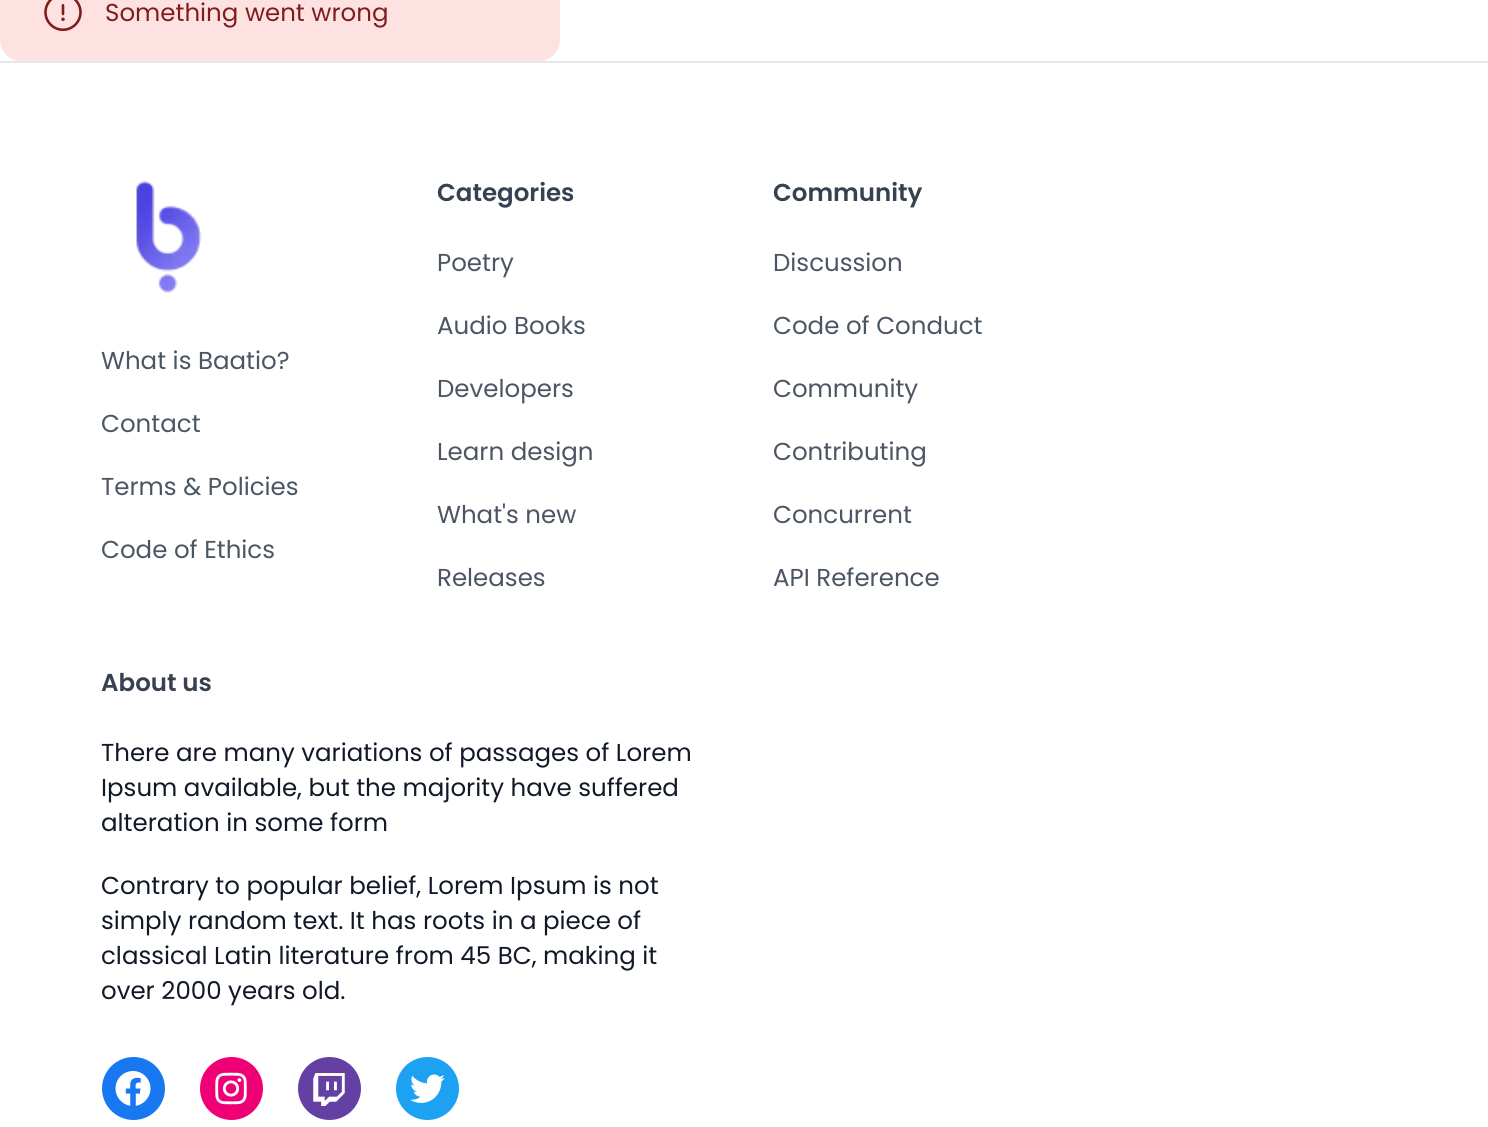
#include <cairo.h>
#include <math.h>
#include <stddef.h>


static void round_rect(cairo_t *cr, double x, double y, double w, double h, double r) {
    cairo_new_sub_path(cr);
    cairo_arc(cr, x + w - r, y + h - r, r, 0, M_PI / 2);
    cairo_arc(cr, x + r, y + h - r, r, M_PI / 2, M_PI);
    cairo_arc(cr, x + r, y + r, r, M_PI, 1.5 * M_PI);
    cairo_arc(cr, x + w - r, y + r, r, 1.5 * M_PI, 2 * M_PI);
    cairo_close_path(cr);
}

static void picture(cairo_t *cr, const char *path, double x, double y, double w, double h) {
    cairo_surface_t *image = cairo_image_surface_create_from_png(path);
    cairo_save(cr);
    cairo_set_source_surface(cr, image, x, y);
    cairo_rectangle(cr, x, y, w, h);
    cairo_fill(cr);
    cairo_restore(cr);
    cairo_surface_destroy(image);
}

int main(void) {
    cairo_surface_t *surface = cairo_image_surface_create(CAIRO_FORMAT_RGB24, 1488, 1127);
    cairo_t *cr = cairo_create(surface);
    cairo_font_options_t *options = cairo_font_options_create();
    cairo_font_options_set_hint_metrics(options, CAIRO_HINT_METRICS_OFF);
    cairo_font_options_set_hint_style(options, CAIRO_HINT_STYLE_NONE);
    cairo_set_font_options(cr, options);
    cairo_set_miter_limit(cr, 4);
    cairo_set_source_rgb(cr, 1, 1, 1);
    cairo_paint(cr);
    cairo_set_source_rgb(cr, 0.996, 0.886, 0.886);
    round_rect(cr, 0, -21, 560, 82, 21);
    cairo_fill(cr);
    picture(cr, "img1.png", 44, 0, 38, 32);
    cairo_select_font_face(cr, "Poppins", CAIRO_FONT_SLANT_NORMAL, CAIRO_FONT_WEIGHT_NORMAL);
    cairo_set_font_size(cr, 24.5);
    cairo_set_source_rgb(cr, 0.498, 0.114, 0.114);
    cairo_move_to(cr, 105, 21);
    cairo_show_text(cr, "Something went wrong");
    cairo_set_source_rgb(cr, 0.898, 0.906, 0.922);
    cairo_rectangle(cr, 0, 61, 1488, 2);
    cairo_fill(cr);
    picture(cr, "img2.png", 136, 181, 66, 112);
    cairo_set_source_rgb(cr, 0.294, 0.333, 0.388);
    cairo_move_to(cr, 101, 369);
    cairo_show_text(cr, "What is Baatio?");
    cairo_move_to(cr, 101, 432);
    cairo_show_text(cr, "Contact");
    cairo_move_to(cr, 101, 495);
    cairo_show_text(cr, "Terms & Policies");
    cairo_move_to(cr, 101, 558);
    cairo_show_text(cr, "Code of Ethics");
    cairo_select_font_face(cr, "Poppins SemiBold", CAIRO_FONT_SLANT_NORMAL, CAIRO_FONT_WEIGHT_NORMAL);
    cairo_set_source_rgb(cr, 0.216, 0.255, 0.318);
    cairo_move_to(cr, 437, 201);
    cairo_show_text(cr, "Categories");
    cairo_select_font_face(cr, "Poppins", CAIRO_FONT_SLANT_NORMAL, CAIRO_FONT_WEIGHT_NORMAL);
    cairo_set_source_rgb(cr, 0.294, 0.333, 0.388);
    cairo_move_to(cr, 437, 271);
    cairo_show_text(cr, "Poetry");
    cairo_move_to(cr, 437, 334);
    cairo_show_text(cr, "Audio Books");
    cairo_move_to(cr, 437, 397);
    cairo_show_text(cr, "Developers");
    cairo_move_to(cr, 437, 460);
    cairo_show_text(cr, "Learn design");
    cairo_move_to(cr, 437, 523);
    cairo_show_text(cr, "What's new");
    cairo_move_to(cr, 437, 586);
    cairo_show_text(cr, "Releases");
    cairo_select_font_face(cr, "Poppins SemiBold", CAIRO_FONT_SLANT_NORMAL, CAIRO_FONT_WEIGHT_NORMAL);
    cairo_set_source_rgb(cr, 0.216, 0.255, 0.318);
    cairo_move_to(cr, 773, 201);
    cairo_show_text(cr, "Community");
    cairo_select_font_face(cr, "Poppins", CAIRO_FONT_SLANT_NORMAL, CAIRO_FONT_WEIGHT_NORMAL);
    cairo_set_source_rgb(cr, 0.294, 0.333, 0.388);
    cairo_move_to(cr, 773, 271);
    cairo_show_text(cr, "Discussion");
    cairo_move_to(cr, 773, 334);
    cairo_show_text(cr, "Code of Conduct");
    cairo_move_to(cr, 773, 397);
    cairo_show_text(cr, "Community");
    cairo_move_to(cr, 773, 460);
    cairo_show_text(cr, "Contributing");
    cairo_move_to(cr, 773, 523);
    cairo_show_text(cr, "Concurrent");
    cairo_move_to(cr, 773, 586);
    cairo_show_text(cr, "API Reference");
    cairo_select_font_face(cr, "Poppins SemiBold", CAIRO_FONT_SLANT_NORMAL, CAIRO_FONT_WEIGHT_NORMAL);
    cairo_set_source_rgb(cr, 0.216, 0.255, 0.318);
    cairo_move_to(cr, 101, 691);
    cairo_show_text(cr, "About us");
    cairo_select_font_face(cr, "Poppins", CAIRO_FONT_SLANT_NORMAL, CAIRO_FONT_WEIGHT_NORMAL);
    cairo_set_source_rgb(cr, 0.067, 0.094, 0.153);
    cairo_move_to(cr, 101, 761);
    cairo_show_text(cr, "There are many variations of passages of Lorem");
    cairo_move_to(cr, 101, 796);
    cairo_show_text(cr, "Ipsum available, but the majority have suffered");
    cairo_move_to(cr, 101, 831);
    cairo_show_text(cr, "alteration in some form");
    cairo_move_to(cr, 101, 894);
    cairo_show_text(cr, "Contrary to popular belief, Lorem Ipsum is not");
    cairo_move_to(cr, 101, 929);
    cairo_show_text(cr, "simply random text. It has roots in a piece of");
    cairo_move_to(cr, 101, 964);
    cairo_show_text(cr, "classical Latin literature from 45 BC, making it");
    cairo_move_to(cr, 101, 999);
    cairo_show_text(cr, "over 2000 years old.");
    cairo_set_source_rgb(cr, 0.09, 0.471, 0.949);
    cairo_new_path(cr);
    cairo_arc(cr, 133.5, 1088.5, 31.5, 0, 2 * M_PI);
    cairo_fill(cr);
    picture(cr, "img3.png", 115, 1071, 36, 35);
    cairo_set_source_rgb(cr, 0.941, 0, 0.459);
    cairo_arc(cr, 231.5, 1088.5, 31.5, 0, 2 * M_PI);
    cairo_fill(cr);
    picture(cr, "img4.png", 215, 1072, 32, 33);
    cairo_set_source_rgb(cr, 0.392, 0.251, 0.643);
    cairo_arc(cr, 329.5, 1088.5, 31.5, 0, 2 * M_PI);
    cairo_fill(cr);
    picture(cr, "img5.png", 313, 1073, 32, 33);
    cairo_set_source_rgb(cr, 0.114, 0.631, 0.949);
    cairo_arc(cr, 427.5, 1088.5, 31.5, 0, 2 * M_PI);
    cairo_fill(cr);
    picture(cr, "img6.png", 410, 1074, 35, 29);
    cairo_surface_write_to_png(surface, "page.png");
    cairo_font_options_destroy(options);
    cairo_destroy(cr);
    cairo_surface_destroy(surface);
    return 0;
}
